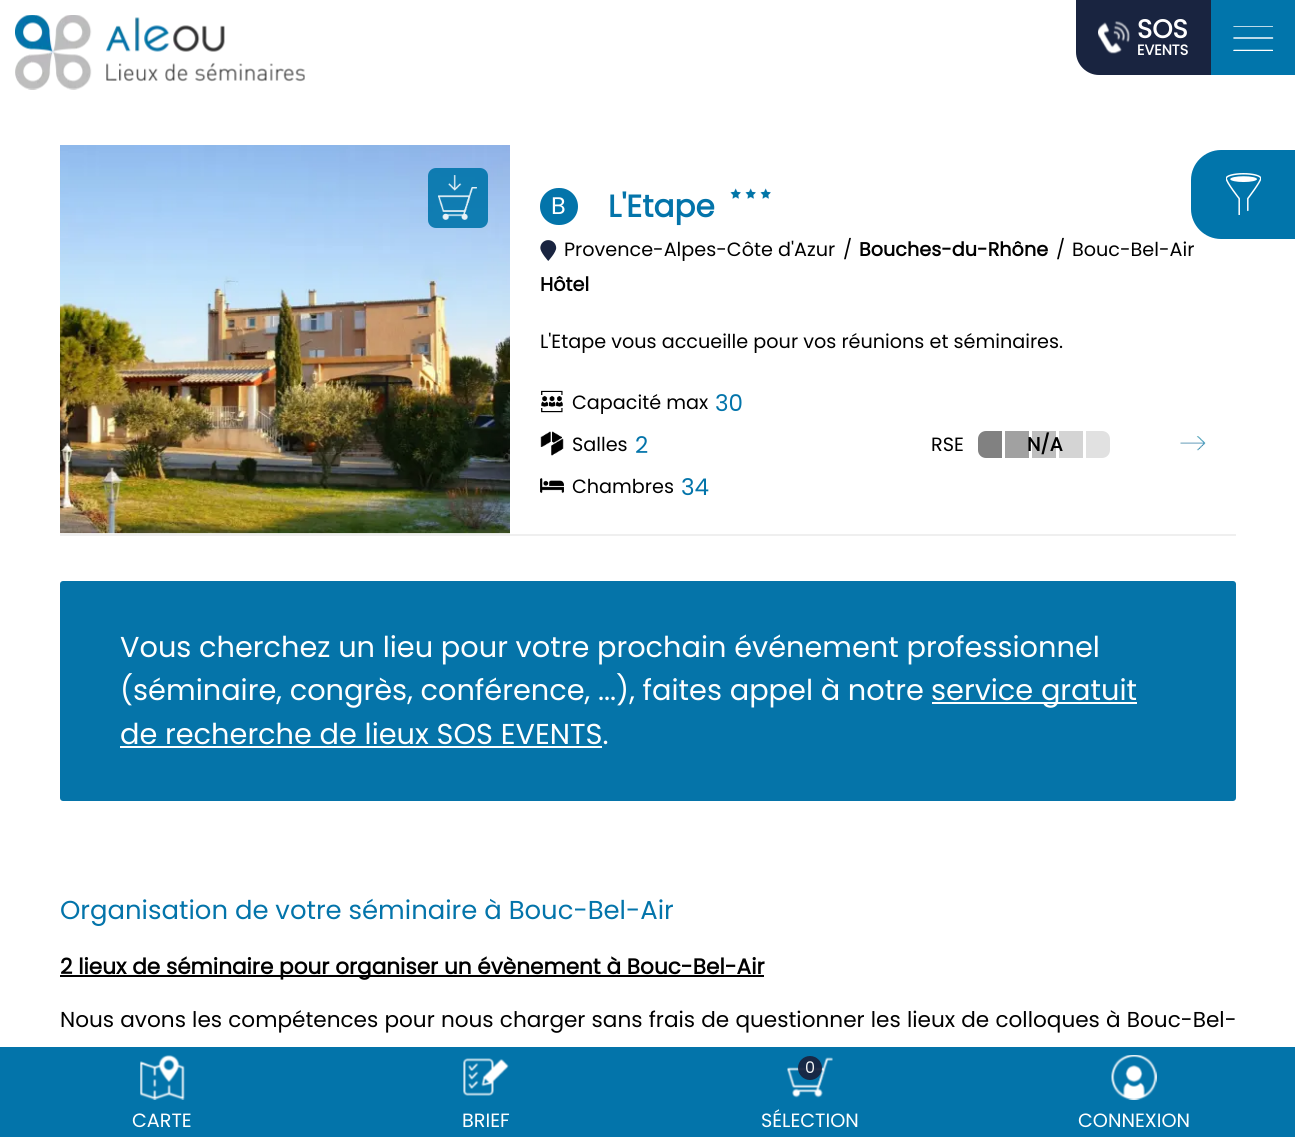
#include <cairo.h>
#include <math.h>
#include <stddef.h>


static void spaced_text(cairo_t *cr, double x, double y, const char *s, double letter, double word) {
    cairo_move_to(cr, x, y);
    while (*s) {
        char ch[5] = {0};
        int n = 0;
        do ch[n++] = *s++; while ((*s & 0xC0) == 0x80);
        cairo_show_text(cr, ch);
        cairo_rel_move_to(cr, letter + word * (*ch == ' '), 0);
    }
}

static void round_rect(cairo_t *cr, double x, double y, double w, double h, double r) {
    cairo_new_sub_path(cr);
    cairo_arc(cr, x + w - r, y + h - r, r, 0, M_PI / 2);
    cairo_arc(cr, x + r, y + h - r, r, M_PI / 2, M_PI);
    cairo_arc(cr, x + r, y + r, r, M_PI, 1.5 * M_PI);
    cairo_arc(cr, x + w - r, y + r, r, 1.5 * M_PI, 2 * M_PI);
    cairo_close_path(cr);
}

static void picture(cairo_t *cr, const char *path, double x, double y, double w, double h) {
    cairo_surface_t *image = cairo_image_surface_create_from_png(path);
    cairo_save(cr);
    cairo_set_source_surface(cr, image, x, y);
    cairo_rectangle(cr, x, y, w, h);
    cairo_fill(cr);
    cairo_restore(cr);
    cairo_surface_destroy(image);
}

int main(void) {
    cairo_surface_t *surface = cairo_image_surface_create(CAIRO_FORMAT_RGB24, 1295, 1137);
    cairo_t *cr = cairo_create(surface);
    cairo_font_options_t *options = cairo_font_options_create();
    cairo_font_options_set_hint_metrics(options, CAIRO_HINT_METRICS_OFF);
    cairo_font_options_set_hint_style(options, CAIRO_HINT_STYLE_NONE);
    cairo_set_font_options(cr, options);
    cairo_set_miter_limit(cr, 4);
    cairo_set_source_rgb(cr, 1, 1, 1);
    cairo_paint(cr);
    picture(cr, "img1.png", 15, 15, 290, 75);
    cairo_set_source_rgb(cr, 0.098, 0.141, 0.251);
    cairo_new_path(cr);
    cairo_move_to(cr, 1076, 0);
    cairo_line_to(cr, 1211, 0);
    cairo_line_to(cr, 1211, 75);
    cairo_line_to(cr, 1099, 75);
    cairo_curve_to(cr, 1086.5, 75, 1076, 64.5, 1076, 52);
    cairo_close_path(cr);
    cairo_fill(cr);
    picture(cr, "img2.png", 1098, 21, 32, 33);
    cairo_select_font_face(cr, "Poppins", CAIRO_FONT_SLANT_NORMAL, CAIRO_FONT_WEIGHT_BOLD);
    cairo_set_font_size(cr, 25.9);
    cairo_set_source_rgb(cr, 1, 1, 1);
    cairo_move_to(cr, 1137, 38);
    cairo_show_text(cr, "SOS");
    cairo_set_font_size(cr, 14.5);
    cairo_move_to(cr, 1137, 55);
    cairo_show_text(cr, "EVENTS");
    cairo_set_source_rgb(cr, 0.004, 0.459, 0.671);
    cairo_rectangle(cr, 1211, 0, 84, 75);
    cairo_fill(cr);
    cairo_save(cr);
    cairo_rectangle(cr, 1233, 26, 40, 25);
    cairo_clip(cr);
    cairo_new_path(cr);
    cairo_move_to(cr, 1234, 26);
    cairo_line_to(cr, 1272.5, 26);
    cairo_set_source_rgb(cr, 1, 1, 1);
    cairo_set_line_width(cr, 1.5);
    cairo_set_line_cap(cr, CAIRO_LINE_CAP_ROUND);
    cairo_set_line_join(cr, CAIRO_LINE_JOIN_ROUND);
    cairo_stroke(cr);
    cairo_restore(cr);
    cairo_new_path(cr);
    cairo_move_to(cr, 1234, 38);
    cairo_line_to(cr, 1272.5, 38);
    cairo_set_source_rgb(cr, 1, 1, 1);
    cairo_set_line_width(cr, 1.5);
    cairo_set_line_cap(cr, CAIRO_LINE_CAP_ROUND);
    cairo_set_line_join(cr, CAIRO_LINE_JOIN_ROUND);
    cairo_stroke(cr);
    cairo_save(cr);
    cairo_rectangle(cr, 1233, 26, 40, 25);
    cairo_clip(cr);
    cairo_new_path(cr);
    cairo_move_to(cr, 1234, 50.5);
    cairo_line_to(cr, 1272.5, 50.5);
    cairo_stroke(cr);
    cairo_restore(cr);
    cairo_set_source_rgb(cr, 0.012, 0.455, 0.667);
    cairo_rectangle(cr, 0, 1047, 1295, 90);
    cairo_fill(cr);
    picture(cr, "img3.png", 140, 1055, 45, 45);
    cairo_select_font_face(cr, "Poppins", CAIRO_FONT_SLANT_NORMAL, CAIRO_FONT_WEIGHT_NORMAL);
    cairo_set_font_size(cr, 19.2);
    cairo_set_source_rgb(cr, 1, 1, 1);
    cairo_move_to(cr, 132, 1127);
    cairo_show_text(cr, "CARTE");
    picture(cr, "img4.png", 463, 1058, 46, 38);
    cairo_move_to(cr, 462, 1127);
    cairo_show_text(cr, "BRIEF");
    picture(cr, "img5.png", 787, 1057, 46, 41);
    cairo_set_source_rgba(cr, 0.098, 0.141, 0.251, 0.94);
    cairo_arc(cr, 810, 1068, 12, 0, 2 * M_PI);
    cairo_fill(cr);
    cairo_set_font_size(cr, 16);
    cairo_set_source_rgb(cr, 0.945, 0.949, 0.957);
    cairo_move_to(cr, 805, 1073);
    cairo_show_text(cr, "0");
    cairo_set_font_size(cr, 19.2);
    cairo_set_source_rgb(cr, 1, 1, 1);
    cairo_move_to(cr, 761, 1127);
    cairo_show_text(cr, "SÉLECTION");
    picture(cr, "img6.png", 1111, 1055, 46, 45);
    cairo_move_to(cr, 1078, 1127);
    cairo_show_text(cr, "CONNEXION");
    cairo_set_source_rgb(cr, 0.937, 0.937, 0.937);
    cairo_rectangle(cr, 60, 534, 1176, 2);
    cairo_fill(cr);
    picture(cr, "img7.png", 60, 145, 450, 389);
    cairo_set_source_rgba(cr, 0.004, 0.459, 0.671, 0.9);
    round_rect(cr, 428, 168, 60, 60, 8);
    cairo_fill(cr);
    picture(cr, "img8.png", 438, 175, 39, 45);
    cairo_set_source_rgb(cr, 0.012, 0.455, 0.667);
    round_rect(cr, 540, 188, 38, 37, 18.5);
    cairo_fill(cr);
    cairo_set_font_size(cr, 24);
    cairo_set_source_rgb(cr, 1, 1, 1);
    cairo_move_to(cr, 551, 214);
    cairo_show_text(cr, "B");
    cairo_select_font_face(cr, "Poppins", CAIRO_FONT_SLANT_NORMAL, CAIRO_FONT_WEIGHT_BOLD);
    cairo_set_font_size(cr, 31);
    cairo_set_source_rgb(cr, 0.012, 0.455, 0.667);
    cairo_move_to(cr, 608, 217);
    cairo_show_text(cr, "L'Etape");
    picture(cr, "img9.png", 730, 188, 11, 11);
    picture(cr, "img9.png", 745, 188, 11, 11);
    picture(cr, "img9.png", 760, 188, 11, 11);
    picture(cr, "img10.png", 540, 240, 17, 21);
    cairo_select_font_face(cr, "Poppins", CAIRO_FONT_SLANT_NORMAL, CAIRO_FONT_WEIGHT_NORMAL);
    cairo_set_font_size(cr, 19.2);
    cairo_set_source_rgb(cr, 0, 0, 0);
    cairo_move_to(cr, 564, 256);
    cairo_show_text(cr, "Provence-Alpes-Côte d'Azur");
    cairo_move_to(cr, 843, 256);
    cairo_show_text(cr, "/");
    cairo_select_font_face(cr, "Poppins", CAIRO_FONT_SLANT_NORMAL, CAIRO_FONT_WEIGHT_BOLD);
    cairo_move_to(cr, 859, 256);
    cairo_show_text(cr, "Bouches-du-Rhône");
    cairo_select_font_face(cr, "Poppins", CAIRO_FONT_SLANT_NORMAL, CAIRO_FONT_WEIGHT_NORMAL);
    cairo_move_to(cr, 1056, 256);
    cairo_show_text(cr, "/");
    cairo_move_to(cr, 1072, 256);
    cairo_show_text(cr, "Bouc-Bel-Air");
    cairo_select_font_face(cr, "Poppins", CAIRO_FONT_SLANT_NORMAL, CAIRO_FONT_WEIGHT_BOLD);
    cairo_move_to(cr, 540, 291);
    cairo_show_text(cr, "Hôtel");
    cairo_select_font_face(cr, "Poppins", CAIRO_FONT_SLANT_NORMAL, CAIRO_FONT_WEIGHT_NORMAL);
    cairo_move_to(cr, 540, 348);
    cairo_show_text(cr, "L'Etape vous accueille pour vos réunions et séminaires.");
    picture(cr, "img11.png", 541, 390, 22, 23);
    cairo_move_to(cr, 572, 409);
    cairo_show_text(cr, "Capacité max");
    cairo_set_font_size(cr, 23);
    cairo_set_source_rgb(cr, 0.012, 0.455, 0.667);
    cairo_move_to(cr, 715, 411);
    cairo_show_text(cr, "30");
    picture(cr, "img12.png", 540, 431, 24, 25);
    cairo_set_font_size(cr, 19.2);
    cairo_set_source_rgb(cr, 0, 0, 0);
    cairo_move_to(cr, 572, 451);
    cairo_show_text(cr, "Salles");
    cairo_set_font_size(cr, 23);
    cairo_set_source_rgb(cr, 0.012, 0.455, 0.667);
    cairo_move_to(cr, 635, 453);
    cairo_show_text(cr, "2");
    picture(cr, "img13.png", 540, 478, 24, 15);
    cairo_set_font_size(cr, 19.2);
    cairo_set_source_rgb(cr, 0, 0, 0);
    cairo_move_to(cr, 572, 493);
    cairo_show_text(cr, "Chambres");
    cairo_set_font_size(cr, 23);
    cairo_set_source_rgb(cr, 0.012, 0.455, 0.667);
    cairo_move_to(cr, 681, 495);
    cairo_show_text(cr, "34");
    cairo_set_font_size(cr, 19.2);
    cairo_set_source_rgb(cr, 0, 0, 0);
    cairo_move_to(cr, 931, 451);
    cairo_show_text(cr, "RSE");
    cairo_set_source_rgb(cr, 0.506, 0.506, 0.506);
    cairo_new_path(cr);
    cairo_move_to(cr, 986, 431);
    cairo_line_to(cr, 1002, 431);
    cairo_line_to(cr, 1002, 458);
    cairo_line_to(cr, 986, 458);
    cairo_curve_to(cr, 981.5, 458, 978, 454.5, 978, 450);
    cairo_line_to(cr, 978, 439);
    cairo_curve_to(cr, 978, 434.5, 981.5, 431, 986, 431);
    cairo_close_path(cr);
    cairo_fill(cr);
    cairo_set_source_rgb(cr, 0.631, 0.631, 0.631);
    cairo_rectangle(cr, 1005, 431, 24, 27);
    cairo_fill(cr);
    cairo_set_source_rgb(cr, 0.745, 0.745, 0.745);
    cairo_rectangle(cr, 1032, 431, 24, 27);
    cairo_fill(cr);
    cairo_set_source_rgb(cr, 0.831, 0.831, 0.831);
    cairo_rectangle(cr, 1059, 431, 24, 27);
    cairo_fill(cr);
    cairo_set_source_rgb(cr, 0.882, 0.882, 0.882);
    cairo_new_path(cr);
    cairo_move_to(cr, 1086, 431);
    cairo_line_to(cr, 1102, 431);
    cairo_curve_to(cr, 1106.5, 431, 1110, 434.5, 1110, 439);
    cairo_line_to(cr, 1110, 450);
    cairo_curve_to(cr, 1110, 454.5, 1106.5, 458, 1102, 458);
    cairo_line_to(cr, 1086, 458);
    cairo_close_path(cr);
    cairo_fill(cr);
    cairo_select_font_face(cr, "Poppins", CAIRO_FONT_SLANT_NORMAL, CAIRO_FONT_WEIGHT_BOLD);
    cairo_set_source_rgb(cr, 0, 0, 0);
    cairo_move_to(cr, 1027, 451);
    cairo_show_text(cr, "N/A");
    picture(cr, "img14.png", 1180, 436, 26, 15);
    cairo_set_source_rgb(cr, 0.02, 0.455, 0.663);
    round_rect(cr, 60, 581, 1176, 220, 3);
    cairo_fill(cr);
    cairo_select_font_face(cr, "Poppins", CAIRO_FONT_SLANT_NORMAL, CAIRO_FONT_WEIGHT_NORMAL);
    cairo_set_font_size(cr, 28.8);
    cairo_set_source_rgb(cr, 1, 1, 1);
    cairo_move_to(cr, 120, 657);
    cairo_show_text(cr, "Vous cherchez un lieu pour votre prochain événement professionnel");
    cairo_move_to(cr, 120, 700);
    cairo_show_text(cr, "(séminaire, congrès, conférence, ...), faites appel à notre");
    cairo_rectangle(cr, 932, 702, 205, 2);
    cairo_fill(cr);
    cairo_move_to(cr, 931, 700);
    cairo_show_text(cr, "service gratuit");
    cairo_move_to(cr, 120, 744);
    cairo_show_text(cr, "de recherche de lieux SOS EVENTS.");
    cairo_rectangle(cr, 120, 746, 482, 2);
    cairo_fill(cr);
    cairo_set_source_rgb(cr, 0.004, 0.459, 0.671);
    cairo_new_path(cr);
    cairo_move_to(cr, 1221, 150);
    cairo_line_to(cr, 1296, 150);
    cairo_line_to(cr, 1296, 239);
    cairo_line_to(cr, 1221, 239);
    cairo_curve_to(cr, 1204.5, 239, 1191, 225.5, 1191, 209);
    cairo_line_to(cr, 1191, 180);
    cairo_curve_to(cr, 1191, 163.5, 1204.5, 150, 1221, 150);
    cairo_close_path(cr);
    cairo_fill(cr);
    picture(cr, "img15.png", 1226, 173, 35, 42);
    cairo_set_font_size(cr, 25.9);
    cairo_set_source_rgb(cr, 0.012, 0.455, 0.667);
    cairo_move_to(cr, 60, 919);
    cairo_show_text(cr, "Organisation de votre séminaire à Bouc-Bel-Air");
    cairo_set_source_rgb(cr, 0, 0, 0);
    cairo_rectangle(cr, 60, 975, 704, 2);
    cairo_fill(cr);
    cairo_select_font_face(cr, "Poppins", CAIRO_FONT_SLANT_NORMAL, CAIRO_FONT_WEIGHT_BOLD);
    cairo_set_font_size(cr, 21.6);
    cairo_move_to(cr, 60, 974);
    cairo_show_text(cr, "2 lieux de séminaire pour organiser un évènement à Bouc-Bel-Air");
    cairo_select_font_face(cr, "Poppins", CAIRO_FONT_SLANT_NORMAL, CAIRO_FONT_WEIGHT_NORMAL);
    spaced_text(cr, 60, 1027, "Nous avons les compétences pour nous charger sans frais de questionner les lieux de colloques à Bouc-Bel-", 0, 0.4);
    cairo_surface_write_to_png(surface, "page.png");
    cairo_font_options_destroy(options);
    cairo_destroy(cr);
    cairo_surface_destroy(surface);
    return 0;
}
